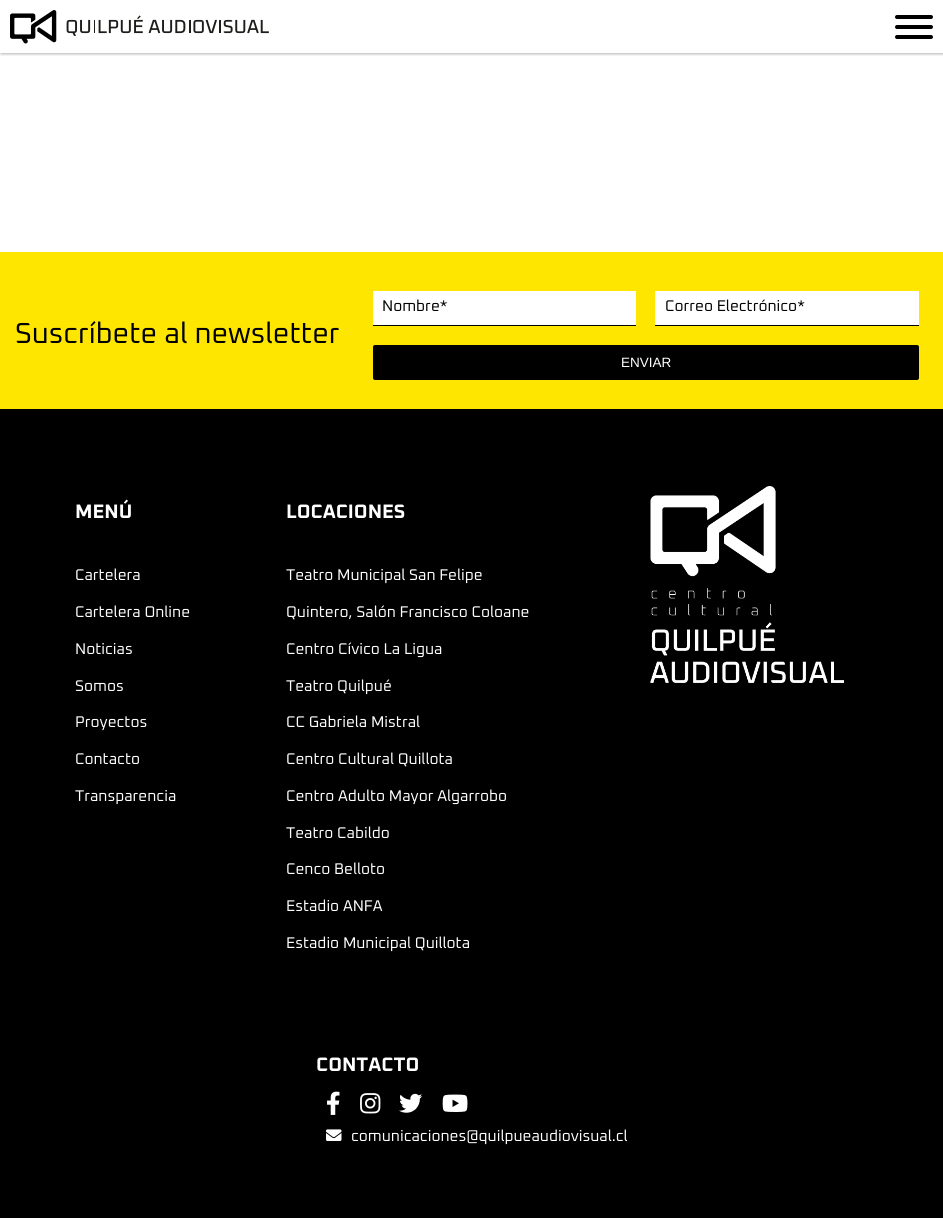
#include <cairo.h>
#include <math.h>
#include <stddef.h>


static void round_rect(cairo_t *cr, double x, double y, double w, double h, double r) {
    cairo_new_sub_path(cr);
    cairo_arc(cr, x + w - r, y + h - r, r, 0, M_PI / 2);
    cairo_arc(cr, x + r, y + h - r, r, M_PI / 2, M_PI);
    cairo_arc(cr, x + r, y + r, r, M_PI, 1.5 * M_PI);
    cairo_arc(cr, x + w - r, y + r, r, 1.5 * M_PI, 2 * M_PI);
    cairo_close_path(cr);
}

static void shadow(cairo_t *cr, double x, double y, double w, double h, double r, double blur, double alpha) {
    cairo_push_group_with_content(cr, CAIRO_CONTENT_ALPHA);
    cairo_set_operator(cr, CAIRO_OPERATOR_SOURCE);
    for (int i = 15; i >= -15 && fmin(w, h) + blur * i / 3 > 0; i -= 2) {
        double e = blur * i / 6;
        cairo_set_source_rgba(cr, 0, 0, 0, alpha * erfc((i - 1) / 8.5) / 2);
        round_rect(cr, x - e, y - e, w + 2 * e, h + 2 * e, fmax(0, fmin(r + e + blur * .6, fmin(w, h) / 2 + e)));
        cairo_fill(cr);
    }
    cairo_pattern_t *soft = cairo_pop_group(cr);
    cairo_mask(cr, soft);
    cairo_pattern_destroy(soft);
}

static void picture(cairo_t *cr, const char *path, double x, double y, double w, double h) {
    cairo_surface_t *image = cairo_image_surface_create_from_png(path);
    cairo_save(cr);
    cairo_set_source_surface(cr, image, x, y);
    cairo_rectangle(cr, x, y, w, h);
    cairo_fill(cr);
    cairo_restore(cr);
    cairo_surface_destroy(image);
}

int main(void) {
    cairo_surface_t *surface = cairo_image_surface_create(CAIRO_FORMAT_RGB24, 943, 1218);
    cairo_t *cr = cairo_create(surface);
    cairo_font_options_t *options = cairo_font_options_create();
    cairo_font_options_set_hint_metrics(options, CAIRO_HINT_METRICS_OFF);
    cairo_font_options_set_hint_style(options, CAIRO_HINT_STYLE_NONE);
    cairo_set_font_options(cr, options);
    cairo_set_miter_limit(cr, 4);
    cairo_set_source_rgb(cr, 1, 1, 1);
    cairo_paint(cr);
    cairo_save(cr);
    cairo_rectangle(cr, 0, 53, 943, 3);
    cairo_clip(cr);
    cairo_set_source_rgb(cr, 0, 0, 0);
    shadow(cr, 1, 1, 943, 53, 0, 1.5, 0.3);
    cairo_restore(cr);
    picture(cr, "img1.png", 10, 10, 259, 34);
    cairo_set_source_rgb(cr, 0, 0, 0);
    round_rect(cr, 895, 15, 38, 4, 2);
    cairo_fill(cr);
    round_rect(cr, 895, 25, 38, 4, 2);
    cairo_fill(cr);
    round_rect(cr, 895, 35, 38, 4, 2);
    cairo_fill(cr);
    cairo_set_source_rgb(cr, 1, 0.902, 0.004);
    cairo_rectangle(cr, 0, 252, 943, 157);
    cairo_fill(cr);
    cairo_select_font_face(cr, "Oxanium", CAIRO_FONT_SLANT_NORMAL, CAIRO_FONT_WEIGHT_NORMAL);
    cairo_set_font_size(cr, 29);
    cairo_set_source_rgb(cr, 0, 0, 0);
    cairo_move_to(cr, 15, 343);
    cairo_show_text(cr, "Suscríbete al newsletter");
    cairo_set_source_rgb(cr, 1, 1, 1);
    cairo_rectangle(cr, 373, 291, 263, 34);
    cairo_fill(cr);
    cairo_set_source_rgb(cr, 0, 0, 0);
    cairo_rectangle(cr, 373, 325, 263, 1);
    cairo_fill(cr);
    cairo_set_font_size(cr, 15.5);
    cairo_move_to(cr, 382, 311);
    cairo_show_text(cr, "Nombre*");
    cairo_set_source_rgb(cr, 1, 1, 1);
    cairo_rectangle(cr, 655, 291, 264, 34);
    cairo_fill(cr);
    cairo_set_source_rgb(cr, 0, 0, 0);
    cairo_rectangle(cr, 655, 325, 264, 1);
    cairo_fill(cr);
    cairo_move_to(cr, 665, 311);
    cairo_show_text(cr, "Correo Electrónico*");
    round_rect(cr, 373, 345, 546, 35, 2);
    cairo_fill(cr);
    cairo_select_font_face(cr, "Liberation Sans", CAIRO_FONT_SLANT_NORMAL, CAIRO_FONT_WEIGHT_NORMAL);
    cairo_set_font_size(cr, 13.5);
    cairo_set_source_rgb(cr, 1, 1, 1);
    cairo_move_to(cr, 621, 367);
    cairo_show_text(cr, "ENVIAR");
    cairo_set_source_rgb(cr, 0, 0, 0);
    cairo_rectangle(cr, 0, 409, 943, 809);
    cairo_fill(cr);
    cairo_select_font_face(cr, "Oxanium", CAIRO_FONT_SLANT_NORMAL, CAIRO_FONT_WEIGHT_BOLD);
    cairo_set_font_size(cr, 19.5);
    cairo_set_source_rgb(cr, 1, 1, 1);
    cairo_move_to(cr, 75, 518);
    cairo_show_text(cr, "MENÚ");
    cairo_select_font_face(cr, "Oxanium", CAIRO_FONT_SLANT_NORMAL, CAIRO_FONT_WEIGHT_NORMAL);
    cairo_set_font_size(cr, 15.5);
    cairo_move_to(cr, 75, 580);
    cairo_show_text(cr, "Cartelera");
    cairo_move_to(cr, 75, 617);
    cairo_show_text(cr, "Cartelera Online");
    cairo_move_to(cr, 75, 654);
    cairo_show_text(cr, "Noticias");
    cairo_move_to(cr, 75, 691);
    cairo_show_text(cr, "Somos");
    cairo_move_to(cr, 75, 727);
    cairo_show_text(cr, "Proyectos");
    cairo_move_to(cr, 75, 764);
    cairo_show_text(cr, "Contacto");
    cairo_move_to(cr, 75, 801);
    cairo_show_text(cr, "Transparencia");
    cairo_select_font_face(cr, "Oxanium", CAIRO_FONT_SLANT_NORMAL, CAIRO_FONT_WEIGHT_BOLD);
    cairo_set_font_size(cr, 19.5);
    cairo_move_to(cr, 286, 518);
    cairo_show_text(cr, "LOCACIONES");
    cairo_select_font_face(cr, "Oxanium", CAIRO_FONT_SLANT_NORMAL, CAIRO_FONT_WEIGHT_NORMAL);
    cairo_set_font_size(cr, 15.5);
    cairo_move_to(cr, 286, 580);
    cairo_show_text(cr, "Teatro Municipal San Felipe");
    cairo_move_to(cr, 286, 617);
    cairo_show_text(cr, "Quintero, Salón Francisco Coloane");
    cairo_move_to(cr, 286, 654);
    cairo_show_text(cr, "Centro Cívico La Ligua");
    cairo_move_to(cr, 286, 691);
    cairo_show_text(cr, "Teatro Quilpué");
    cairo_move_to(cr, 286, 727);
    cairo_show_text(cr, "CC Gabriela Mistral");
    cairo_move_to(cr, 286, 764);
    cairo_show_text(cr, "Centro Cultural Quillota");
    cairo_move_to(cr, 286, 801);
    cairo_show_text(cr, "Centro Adulto Mayor Algarrobo");
    cairo_move_to(cr, 286, 838);
    cairo_show_text(cr, "Teatro Cabildo");
    cairo_move_to(cr, 286, 874);
    cairo_show_text(cr, "Cenco Belloto");
    cairo_move_to(cr, 286, 911);
    cairo_show_text(cr, "Estadio ANFA");
    cairo_move_to(cr, 286, 948);
    cairo_show_text(cr, "Estadio Municipal Quillota");
    picture(cr, "img2.png", 650, 486, 194, 197);
    cairo_select_font_face(cr, "Oxanium", CAIRO_FONT_SLANT_NORMAL, CAIRO_FONT_WEIGHT_BOLD);
    cairo_set_font_size(cr, 19.5);
    cairo_move_to(cr, 316, 1071);
    cairo_show_text(cr, "CONTACTO");
    picture(cr, "img3.png", 327, 1091, 13, 24);
    picture(cr, "img4.png", 360, 1093, 21, 21);
    picture(cr, "img5.png", 399, 1093, 24, 20);
    picture(cr, "img6.png", 442, 1094, 26, 18);
    picture(cr, "img7.png", 326, 1129, 16, 12);
    cairo_select_font_face(cr, "Oxanium", CAIRO_FONT_SLANT_NORMAL, CAIRO_FONT_WEIGHT_NORMAL);
    cairo_set_font_size(cr, 15.5);
    cairo_move_to(cr, 351, 1141);
    cairo_show_text(cr, "comunicaciones@quilpueaudiovisual.cl");
    cairo_surface_write_to_png(surface, "page.png");
    cairo_font_options_destroy(options);
    cairo_destroy(cr);
    cairo_surface_destroy(surface);
    return 0;
}
